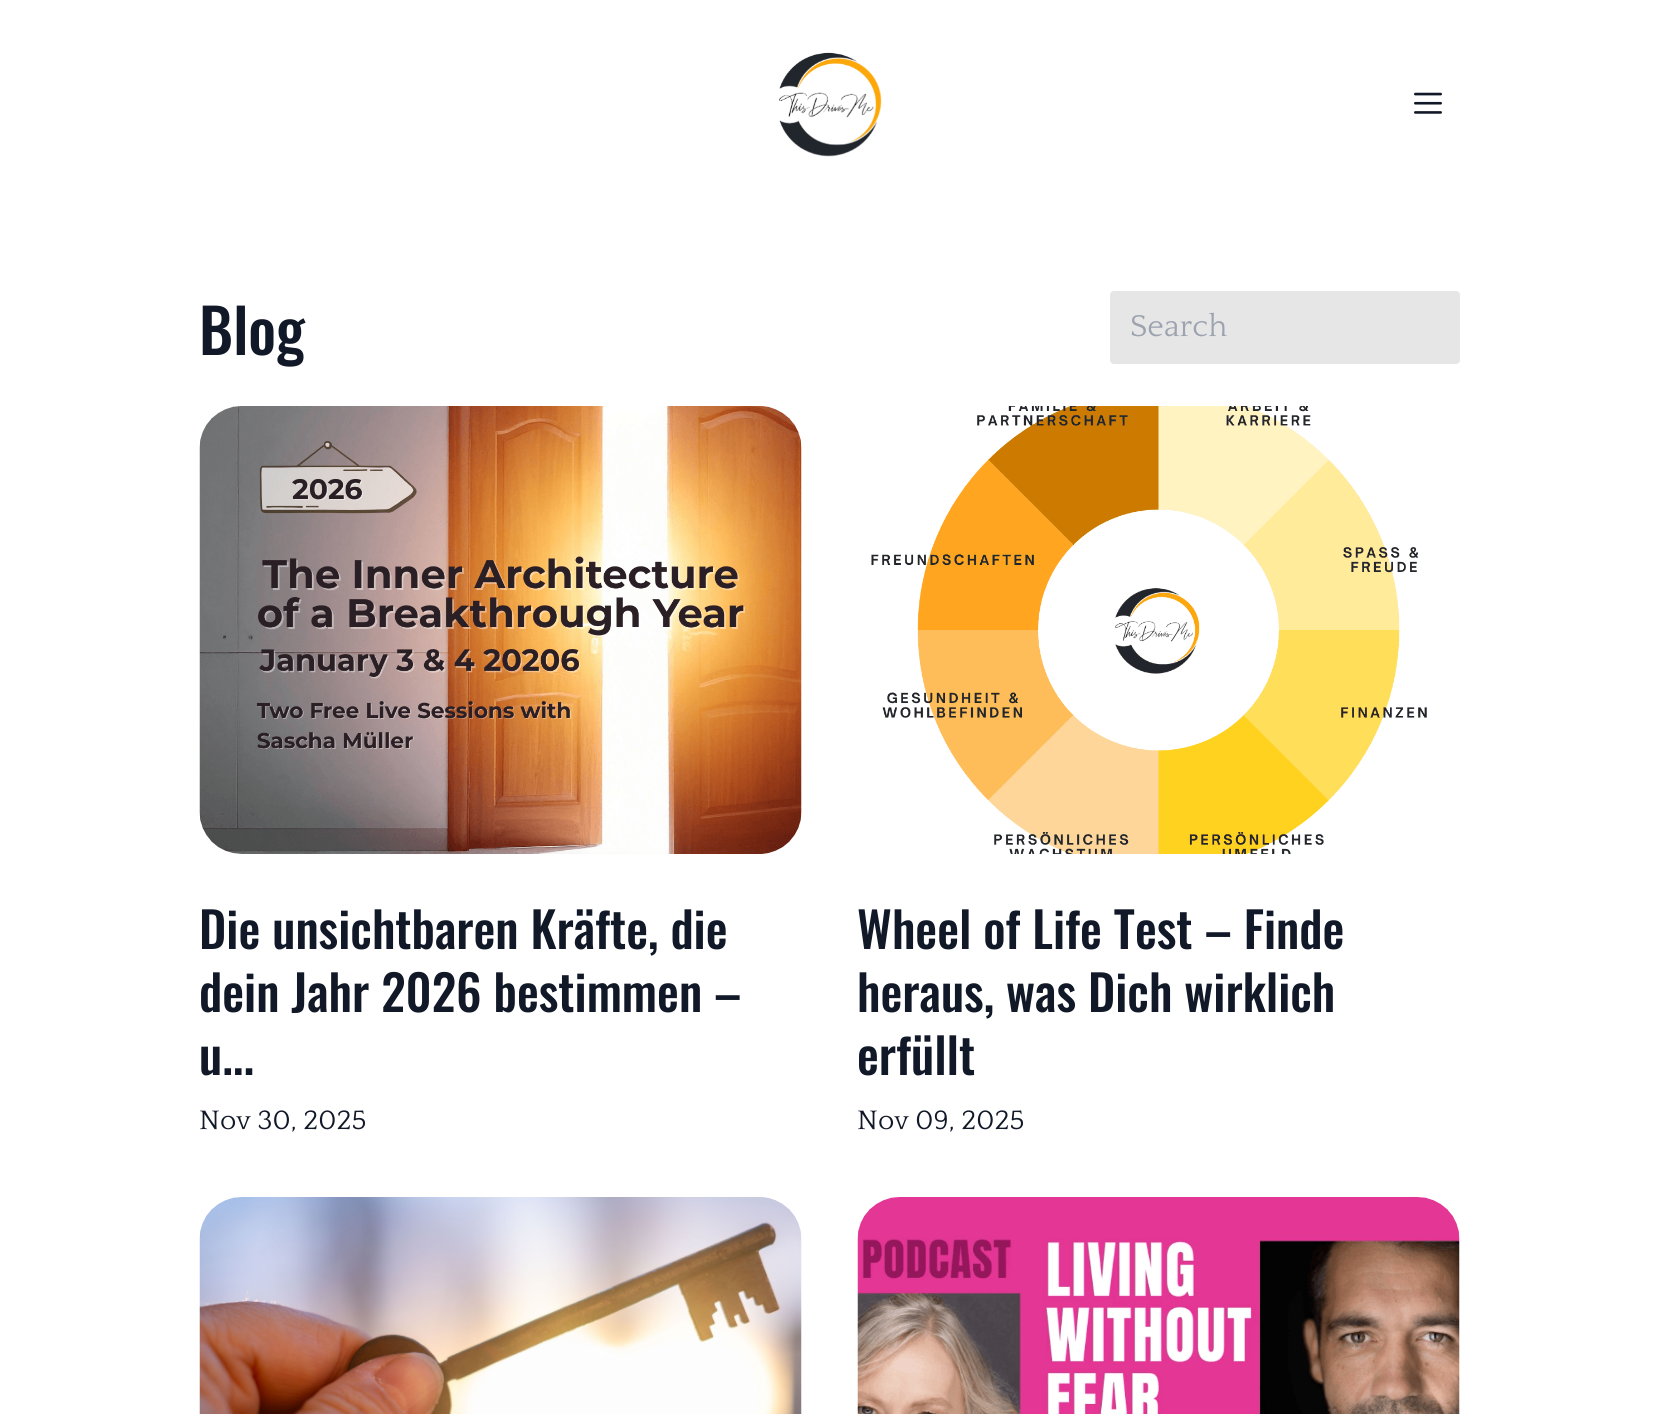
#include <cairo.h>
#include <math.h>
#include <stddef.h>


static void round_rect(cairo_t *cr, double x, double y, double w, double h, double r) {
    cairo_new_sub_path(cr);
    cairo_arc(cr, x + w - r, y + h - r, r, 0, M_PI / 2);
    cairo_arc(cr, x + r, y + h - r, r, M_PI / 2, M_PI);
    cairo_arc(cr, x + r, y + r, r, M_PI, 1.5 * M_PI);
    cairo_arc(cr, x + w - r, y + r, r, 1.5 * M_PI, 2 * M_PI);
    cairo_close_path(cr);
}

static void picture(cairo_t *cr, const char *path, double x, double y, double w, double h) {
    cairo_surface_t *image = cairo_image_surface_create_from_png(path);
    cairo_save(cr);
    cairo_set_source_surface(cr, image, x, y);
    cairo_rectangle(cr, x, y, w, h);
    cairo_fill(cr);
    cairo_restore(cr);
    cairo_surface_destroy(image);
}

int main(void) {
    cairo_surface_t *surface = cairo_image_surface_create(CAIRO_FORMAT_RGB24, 1656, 1414);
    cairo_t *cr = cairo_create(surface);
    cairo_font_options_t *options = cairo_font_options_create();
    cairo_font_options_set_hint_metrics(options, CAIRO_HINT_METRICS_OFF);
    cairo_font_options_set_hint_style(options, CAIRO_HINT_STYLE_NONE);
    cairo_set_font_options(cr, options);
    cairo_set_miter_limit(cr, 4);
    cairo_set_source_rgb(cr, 1, 1, 1);
    cairo_paint(cr);
    picture(cr, "img1.png", 779, 52, 103, 105);
    picture(cr, "img2.png", 1414, 92, 28, 22);
    cairo_select_font_face(cr, "Oswald Medium", CAIRO_FONT_SLANT_NORMAL, CAIRO_FONT_WEIGHT_NORMAL);
    cairo_set_font_size(cr, 61);
    cairo_set_source_rgb(cr, 0.067, 0.094, 0.153);
    cairo_move_to(cr, 199, 355);
    cairo_show_text(cr, "Blog");
    cairo_set_source_rgba(cr, 0, 0, 0, 0.1);
    round_rect(cr, 1110, 291, 350, 73, 4);
    cairo_fill(cr);
    cairo_select_font_face(cr, "Quattrocento", CAIRO_FONT_SLANT_NORMAL, CAIRO_FONT_WEIGHT_NORMAL);
    cairo_set_font_size(cr, 31.5);
    cairo_set_source_rgb(cr, 0.612, 0.639, 0.686);
    cairo_move_to(cr, 1130, 336);
    cairo_show_text(cr, "Search");
    picture(cr, "img3.png", 199, 406, 603, 448);
    cairo_select_font_face(cr, "Oswald Medium", CAIRO_FONT_SLANT_NORMAL, CAIRO_FONT_WEIGHT_NORMAL);
    cairo_set_font_size(cr, 49);
    cairo_set_source_rgb(cr, 0.067, 0.094, 0.153);
    cairo_move_to(cr, 199, 949);
    cairo_show_text(cr, "Die unsichtbaren Kräfte, die");
    cairo_move_to(cr, 199, 1012);
    cairo_show_text(cr, "dein Jahr 2026 bestimmen –");
    cairo_move_to(cr, 199, 1075);
    cairo_show_text(cr, "u...");
    cairo_select_font_face(cr, "Quattrocento", CAIRO_FONT_SLANT_NORMAL, CAIRO_FONT_WEIGHT_NORMAL);
    cairo_set_font_size(cr, 28);
    cairo_move_to(cr, 199, 1129);
    cairo_show_text(cr, "Nov 30, 2025");
    picture(cr, "img4.png", 871, 406, 556, 448);
    cairo_select_font_face(cr, "Oswald Medium", CAIRO_FONT_SLANT_NORMAL, CAIRO_FONT_WEIGHT_NORMAL);
    cairo_set_font_size(cr, 49);
    cairo_move_to(cr, 857, 949);
    cairo_show_text(cr, "Wheel of Life Test – Finde");
    cairo_move_to(cr, 857, 1012);
    cairo_show_text(cr, "heraus, was Dich wirklich");
    cairo_move_to(cr, 857, 1075);
    cairo_show_text(cr, "erfüllt");
    cairo_select_font_face(cr, "Quattrocento", CAIRO_FONT_SLANT_NORMAL, CAIRO_FONT_WEIGHT_NORMAL);
    cairo_set_font_size(cr, 28);
    cairo_move_to(cr, 857, 1129);
    cairo_show_text(cr, "Nov 09, 2025");
    picture(cr, "img5.png", 199, 1197, 603, 217);
    picture(cr, "img6.png", 857, 1197, 603, 217);
    cairo_surface_write_to_png(surface, "page.png");
    cairo_font_options_destroy(options);
    cairo_destroy(cr);
    cairo_surface_destroy(surface);
    return 0;
}
